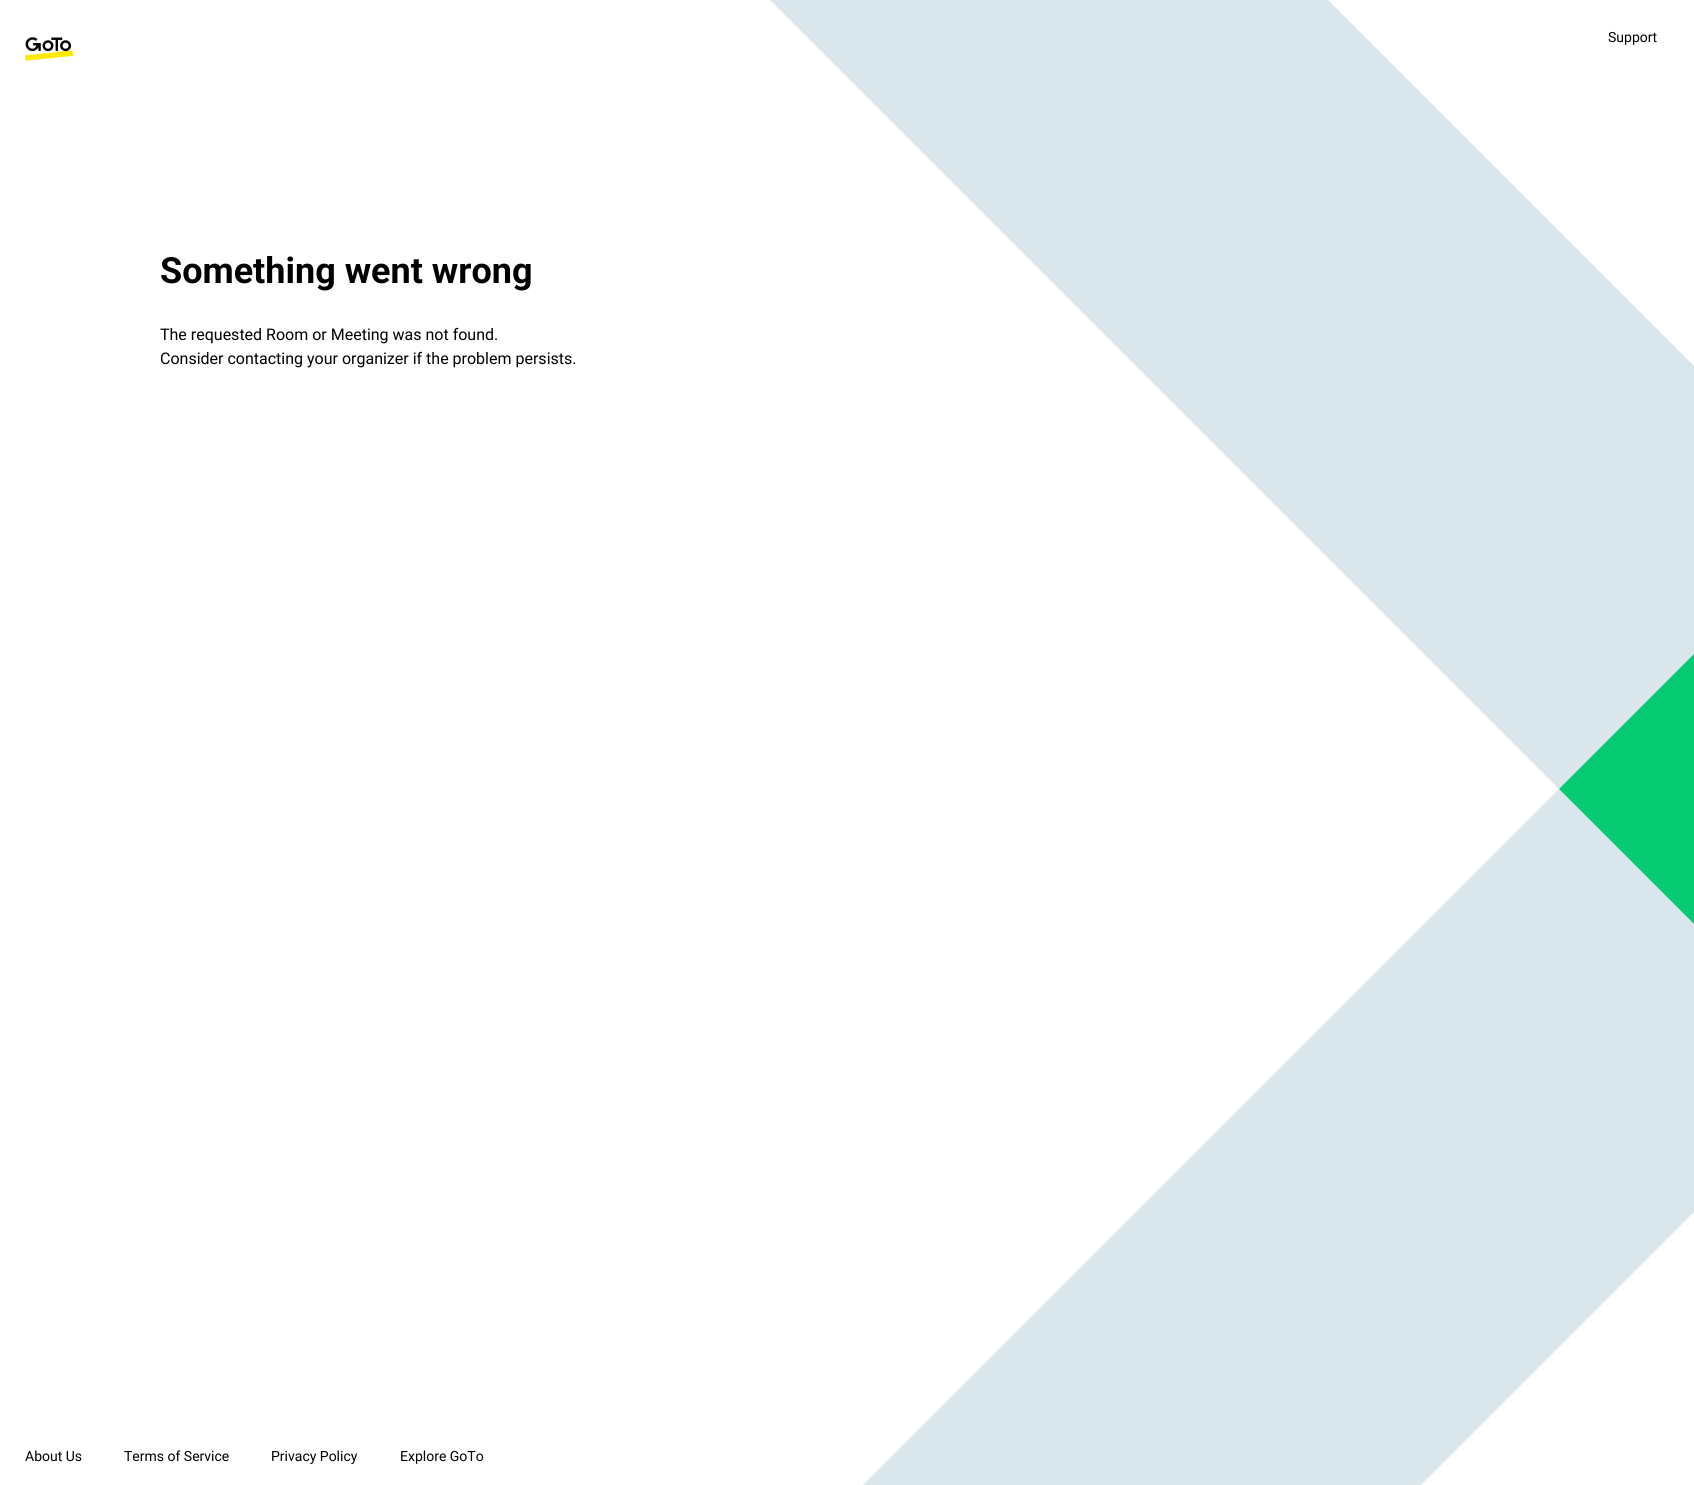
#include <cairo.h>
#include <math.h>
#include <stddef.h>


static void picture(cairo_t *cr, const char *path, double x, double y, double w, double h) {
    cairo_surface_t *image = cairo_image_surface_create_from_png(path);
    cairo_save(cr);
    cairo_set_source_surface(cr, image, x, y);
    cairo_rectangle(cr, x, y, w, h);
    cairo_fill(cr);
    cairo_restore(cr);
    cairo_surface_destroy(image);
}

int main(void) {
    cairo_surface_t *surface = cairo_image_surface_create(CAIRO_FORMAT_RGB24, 1694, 1485);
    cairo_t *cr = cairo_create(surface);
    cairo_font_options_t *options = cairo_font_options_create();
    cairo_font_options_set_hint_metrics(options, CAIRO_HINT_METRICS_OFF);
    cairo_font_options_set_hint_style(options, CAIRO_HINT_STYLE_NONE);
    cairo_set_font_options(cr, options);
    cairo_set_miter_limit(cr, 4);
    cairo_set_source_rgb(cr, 1, 1, 1);
    cairo_paint(cr);
    cairo_set_source_rgb(cr, 0.851, 0.902, 0.925);
    cairo_new_path(cr);
    cairo_move_to(cr, 755, 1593);
    cairo_line_to(cr, 1559, 789);
    cairo_line_to(cr, 755, -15);
    cairo_line_to(cr, 1034, -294);
    cairo_line_to(cr, 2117, 789);
    cairo_line_to(cr, 1034, 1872);
    cairo_close_path(cr);
    cairo_fill(cr);
    cairo_set_source_rgb(cr, 0.027, 0.796, 0.451);
    cairo_new_path(cr);
    cairo_move_to(cr, 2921, -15);
    cairo_line_to(cr, 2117, 789);
    cairo_line_to(cr, 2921, 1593);
    cairo_line_to(cr, 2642, 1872);
    cairo_line_to(cr, 1559, 789);
    cairo_line_to(cr, 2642, -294);
    cairo_close_path(cr);
    cairo_fill(cr);
    picture(cr, "img1.png", 25, 37, 48, 24);
    cairo_select_font_face(cr, "Roboto", CAIRO_FONT_SLANT_NORMAL, CAIRO_FONT_WEIGHT_NORMAL);
    cairo_set_font_size(cr, 14);
    cairo_set_source_rgb(cr, 0, 0, 0);
    cairo_move_to(cr, 1608, 42);
    cairo_show_text(cr, "Support");
    cairo_select_font_face(cr, "Roboto", CAIRO_FONT_SLANT_NORMAL, CAIRO_FONT_WEIGHT_BOLD);
    cairo_set_font_size(cr, 36);
    cairo_move_to(cr, 160, 283);
    cairo_show_text(cr, "Something went wrong");
    cairo_select_font_face(cr, "Roboto", CAIRO_FONT_SLANT_NORMAL, CAIRO_FONT_WEIGHT_NORMAL);
    cairo_set_font_size(cr, 16);
    cairo_move_to(cr, 160, 340);
    cairo_show_text(cr, "The requested Room or Meeting was not found.");
    cairo_move_to(cr, 160, 364);
    cairo_show_text(cr, "Consider contacting your organizer if the problem persists.");
    cairo_set_font_size(cr, 14);
    cairo_move_to(cr, 25, 1461);
    cairo_show_text(cr, "About Us");
    cairo_move_to(cr, 124, 1461);
    cairo_show_text(cr, "Terms of Service");
    cairo_move_to(cr, 271, 1461);
    cairo_show_text(cr, "Privacy Policy");
    cairo_move_to(cr, 400, 1461);
    cairo_show_text(cr, "Explore GoTo");
    cairo_surface_write_to_png(surface, "page.png");
    cairo_font_options_destroy(options);
    cairo_destroy(cr);
    cairo_surface_destroy(surface);
    return 0;
}
